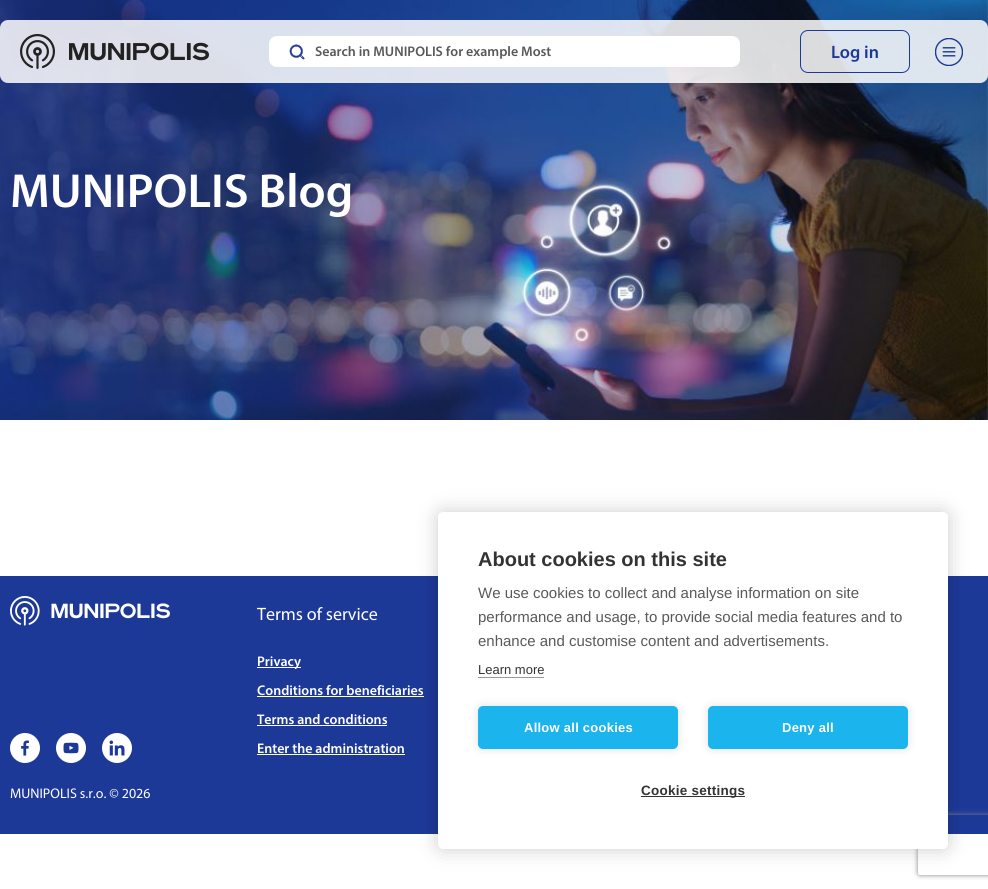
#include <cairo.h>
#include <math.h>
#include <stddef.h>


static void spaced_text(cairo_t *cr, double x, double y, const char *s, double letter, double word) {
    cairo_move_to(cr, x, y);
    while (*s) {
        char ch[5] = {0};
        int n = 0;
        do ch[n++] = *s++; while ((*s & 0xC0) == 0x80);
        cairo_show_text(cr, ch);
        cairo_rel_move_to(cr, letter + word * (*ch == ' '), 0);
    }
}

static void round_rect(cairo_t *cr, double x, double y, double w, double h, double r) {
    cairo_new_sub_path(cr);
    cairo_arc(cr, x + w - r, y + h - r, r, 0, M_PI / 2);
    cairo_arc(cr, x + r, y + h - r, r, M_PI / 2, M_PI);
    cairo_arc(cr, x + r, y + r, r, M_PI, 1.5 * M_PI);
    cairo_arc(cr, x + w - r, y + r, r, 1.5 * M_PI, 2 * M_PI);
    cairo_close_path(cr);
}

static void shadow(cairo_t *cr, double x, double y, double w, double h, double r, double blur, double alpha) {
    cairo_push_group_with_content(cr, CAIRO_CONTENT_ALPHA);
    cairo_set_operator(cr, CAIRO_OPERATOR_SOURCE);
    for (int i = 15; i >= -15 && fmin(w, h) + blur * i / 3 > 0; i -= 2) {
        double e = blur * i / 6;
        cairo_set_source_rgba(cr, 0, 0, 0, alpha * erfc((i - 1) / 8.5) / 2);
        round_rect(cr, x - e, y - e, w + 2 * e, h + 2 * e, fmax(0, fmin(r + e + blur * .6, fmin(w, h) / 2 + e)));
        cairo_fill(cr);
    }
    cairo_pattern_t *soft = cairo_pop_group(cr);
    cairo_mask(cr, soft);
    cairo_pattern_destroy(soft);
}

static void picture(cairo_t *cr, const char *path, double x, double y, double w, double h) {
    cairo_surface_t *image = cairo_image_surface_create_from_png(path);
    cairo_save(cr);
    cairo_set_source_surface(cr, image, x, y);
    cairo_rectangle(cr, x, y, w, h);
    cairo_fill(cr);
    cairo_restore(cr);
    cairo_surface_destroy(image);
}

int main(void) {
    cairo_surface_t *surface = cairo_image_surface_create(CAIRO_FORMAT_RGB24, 988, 889);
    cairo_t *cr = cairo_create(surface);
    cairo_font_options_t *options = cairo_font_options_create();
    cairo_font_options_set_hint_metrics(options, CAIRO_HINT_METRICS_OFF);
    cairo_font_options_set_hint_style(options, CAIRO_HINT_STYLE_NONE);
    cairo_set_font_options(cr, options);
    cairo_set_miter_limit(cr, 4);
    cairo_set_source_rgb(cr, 1, 1, 1);
    cairo_paint(cr);
    picture(cr, "img4.png", 0, 0, 988, 420);
    cairo_set_source_rgba(cr, 1, 1, 1, 0.85);
    round_rect(cr, 0, 20, 988, 63, 8);
    cairo_fill(cr);
    picture(cr, "img1.png", 20, 34, 189, 35);
    cairo_set_source_rgb(cr, 1, 1, 1);
    round_rect(cr, 269, 36, 471, 31, 8);
    cairo_fill(cr);
    picture(cr, "img2.png", 289, 44, 16, 16);
    cairo_select_font_face(cr, "Myriad SemiBold", CAIRO_FONT_SLANT_NORMAL, CAIRO_FONT_WEIGHT_NORMAL);
    cairo_set_font_size(cr, 14);
    cairo_set_source_rgb(cr, 0.349, 0.349, 0.349);
    cairo_move_to(cr, 315, 56);
    cairo_show_text(cr, "Search in MUNIPOLIS for example Most");
    round_rect(cr, 800.5, 30.5, 109, 42, 7.5);
    cairo_set_source_rgb(cr, 0.114, 0.224, 0.596);
    cairo_set_line_width(cr, 1);
    cairo_stroke(cr);
    cairo_set_font_size(cr, 18);
    cairo_move_to(cr, 831, 58);
    cairo_show_text(cr, "Log in");
    picture(cr, "img3.png", 935, 38, 28, 28);
    cairo_set_font_size(cr, 48);
    cairo_set_source_rgb(cr, 1, 1, 1);
    cairo_move_to(cr, 10, 207);
    cairo_show_text(cr, "MUNIPOLIS Blog");
    cairo_set_source_rgb(cr, 0.114, 0.224, 0.596);
    cairo_rectangle(cr, 0, 576, 988, 258);
    cairo_fill(cr);
    cairo_select_font_face(cr, "Myriad", CAIRO_FONT_SLANT_NORMAL, CAIRO_FONT_WEIGHT_NORMAL);
    cairo_set_font_size(cr, 18);
    cairo_set_source_rgb(cr, 1, 1, 1);
    cairo_move_to(cr, 257, 620);
    cairo_show_text(cr, "Terms of service");
    cairo_rectangle(cr, 257, 667, 44, 1);
    cairo_fill(cr);
    cairo_select_font_face(cr, "Myriad SemiBold", CAIRO_FONT_SLANT_NORMAL, CAIRO_FONT_WEIGHT_NORMAL);
    cairo_set_font_size(cr, 14);
    cairo_move_to(cr, 257, 666);
    cairo_show_text(cr, "Privacy");
    cairo_move_to(cr, 257, 695);
    cairo_show_text(cr, "Conditions for beneficiaries");
    cairo_rectangle(cr, 257, 696, 167, 1);
    cairo_fill(cr);
    cairo_move_to(cr, 257, 724);
    cairo_show_text(cr, "Terms and conditions");
    cairo_rectangle(cr, 257, 725, 130, 1);
    cairo_fill(cr);
    cairo_move_to(cr, 257, 753);
    cairo_show_text(cr, "Enter the administration");
    cairo_rectangle(cr, 257, 754, 148, 1);
    cairo_fill(cr);
    picture(cr, "img5.png", 10, 596, 160, 30);
    picture(cr, "img6.png", 10, 733, 30, 30);
    picture(cr, "img7.png", 56, 733, 30, 30);
    picture(cr, "img8.png", 102, 733, 30, 30);
    cairo_select_font_face(cr, "Myriad", CAIRO_FONT_SLANT_NORMAL, CAIRO_FONT_WEIGHT_NORMAL);
    cairo_move_to(cr, 10, 798);
    cairo_show_text(cr, "MUNIPOLIS s.r.o. © 2026");
    cairo_set_source_rgb(cr, 0, 0, 0);
    shadow(cr, 438, 512, 510, 337, 5, 10, 0.2);
    cairo_save(cr);
    cairo_set_fill_rule(cr, CAIRO_FILL_RULE_EVEN_ODD);
    cairo_new_path(cr);
    cairo_move_to(cr, 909, 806);
    cairo_line_to(cr, 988, 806);
    cairo_line_to(cr, 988, 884);
    cairo_line_to(cr, 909, 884);
    cairo_close_path(cr);
    cairo_move_to(cr, 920, 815);
    cairo_line_to(cr, 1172, 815);
    cairo_curve_to(cr, 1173, 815, 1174, 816, 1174, 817);
    cairo_line_to(cr, 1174, 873);
    cairo_curve_to(cr, 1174, 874, 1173, 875, 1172, 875);
    cairo_line_to(cr, 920, 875);
    cairo_curve_to(cr, 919, 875, 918, 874, 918, 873);
    cairo_line_to(cr, 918, 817);
    cairo_curve_to(cr, 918, 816, 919, 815, 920, 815);
    cairo_close_path(cr);
    cairo_clip(cr);
    cairo_set_source_rgb(cr, 0.502, 0.502, 0.502);
    shadow(cr, 918, 815, 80, 60, 2, 2.5, 1);
    cairo_restore(cr);
    cairo_set_source_rgb(cr, 1, 1, 1);
    round_rect(cr, 438, 512, 510, 337, 5);
    cairo_fill(cr);
    cairo_select_font_face(cr, "Liberation Sans", CAIRO_FONT_SLANT_NORMAL, CAIRO_FONT_WEIGHT_BOLD);
    cairo_set_font_size(cr, 20);
    cairo_set_source_rgb(cr, 0.2, 0.2, 0.2);
    cairo_move_to(cr, 478, 566);
    cairo_show_text(cr, "About cookies on this site");
    cairo_select_font_face(cr, "Liberation Sans", CAIRO_FONT_SLANT_NORMAL, CAIRO_FONT_WEIGHT_NORMAL);
    cairo_set_font_size(cr, 15);
    cairo_set_source_rgb(cr, 0.349, 0.349, 0.349);
    cairo_move_to(cr, 478, 598);
    cairo_show_text(cr, "We use cookies to collect and analyse information on site");
    cairo_move_to(cr, 478, 622);
    cairo_show_text(cr, "performance and usage, to provide social media features and to");
    cairo_move_to(cr, 478, 646);
    cairo_show_text(cr, "enhance and customise content and advertisements.");
    cairo_set_font_size(cr, 13);
    cairo_set_source_rgb(cr, 0.2, 0.2, 0.2);
    cairo_move_to(cr, 478, 674);
    cairo_show_text(cr, "Learn more");
    cairo_set_source_rgb(cr, 0.6, 0.6, 0.6);
    cairo_rectangle(cr, 478, 677, 66, 1);
    cairo_fill(cr);
    cairo_set_source_rgb(cr, 0, 0, 0);
    shadow(cr, 478, 706, 200, 43, 5, 5, 0.12);
    cairo_set_source_rgb(cr, 0.106, 0.706, 0.925);
    round_rect(cr, 478, 706, 200, 43, 5);
    cairo_fill(cr);
    cairo_select_font_face(cr, "Liberation Sans", CAIRO_FONT_SLANT_NORMAL, CAIRO_FONT_WEIGHT_BOLD);
    cairo_set_source_rgb(cr, 1, 1, 1);
    spaced_text(cr, 524, 732, "Allow all cookies", 0.25, 0);
    cairo_set_source_rgb(cr, 0, 0, 0);
    shadow(cr, 708, 706, 200, 43, 5, 5, 0.12);
    cairo_set_source_rgb(cr, 0.106, 0.706, 0.925);
    round_rect(cr, 708, 706, 200, 43, 5);
    cairo_fill(cr);
    cairo_set_source_rgb(cr, 1, 1, 1);
    spaced_text(cr, 782, 732, "Deny all", 0.25, 0);
    cairo_set_source_rgb(cr, 0.2, 0.2, 0.2);
    cairo_rectangle(cr, 641, 796, 104, 1);
    cairo_fill(cr);
    cairo_set_font_size(cr, 13.5);
    spaced_text(cr, 641, 795, "Cookie settings", 0.25, 0);
    cairo_surface_write_to_png(surface, "page.png");
    cairo_font_options_destroy(options);
    cairo_destroy(cr);
    cairo_surface_destroy(surface);
    return 0;
}
